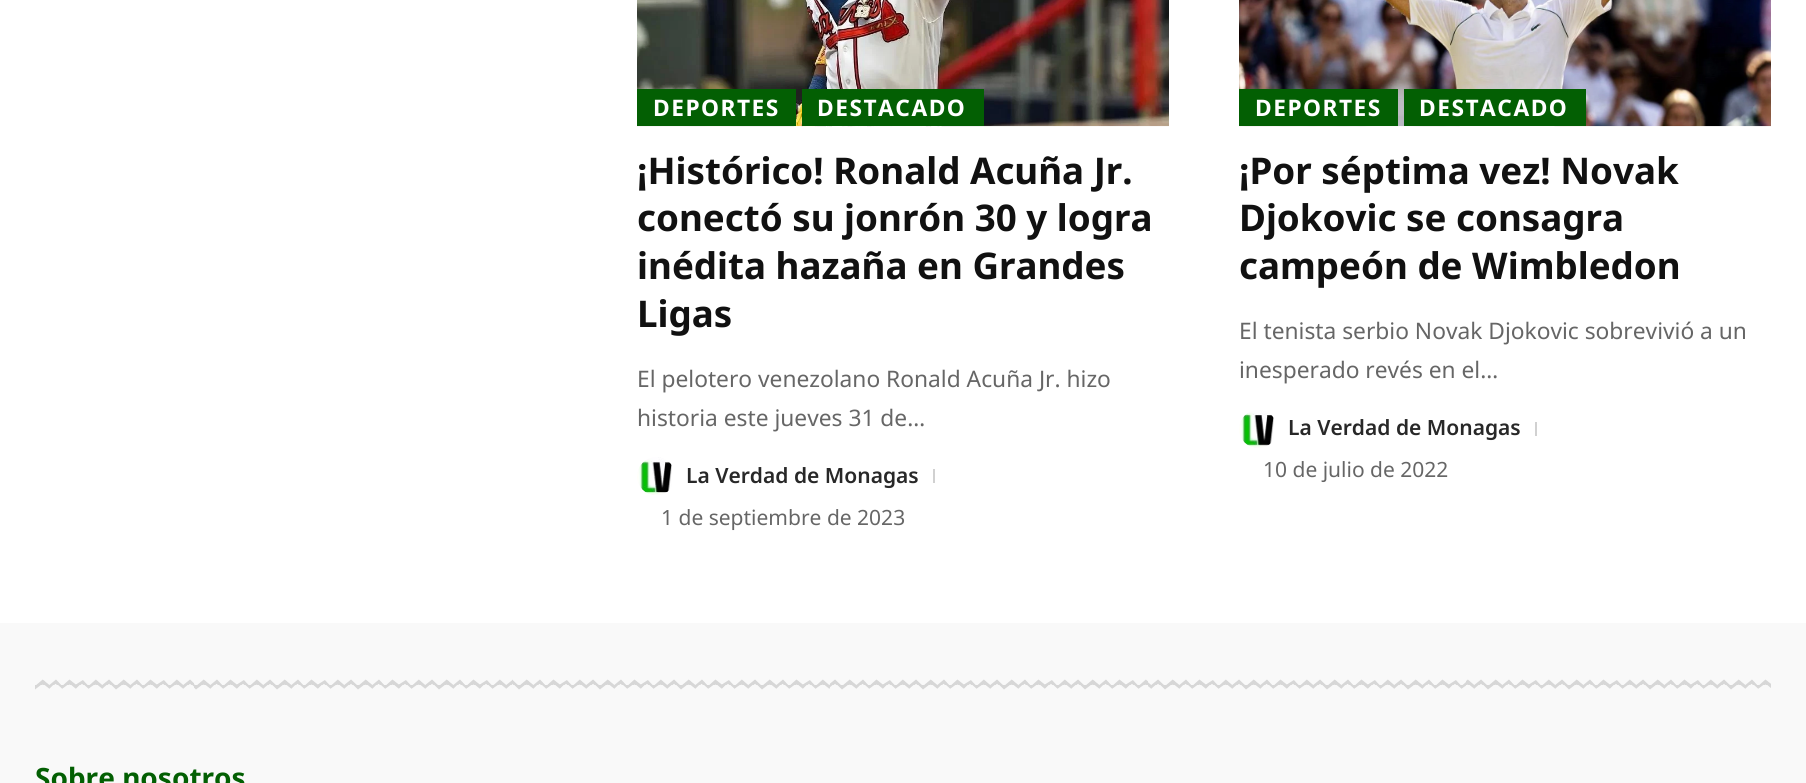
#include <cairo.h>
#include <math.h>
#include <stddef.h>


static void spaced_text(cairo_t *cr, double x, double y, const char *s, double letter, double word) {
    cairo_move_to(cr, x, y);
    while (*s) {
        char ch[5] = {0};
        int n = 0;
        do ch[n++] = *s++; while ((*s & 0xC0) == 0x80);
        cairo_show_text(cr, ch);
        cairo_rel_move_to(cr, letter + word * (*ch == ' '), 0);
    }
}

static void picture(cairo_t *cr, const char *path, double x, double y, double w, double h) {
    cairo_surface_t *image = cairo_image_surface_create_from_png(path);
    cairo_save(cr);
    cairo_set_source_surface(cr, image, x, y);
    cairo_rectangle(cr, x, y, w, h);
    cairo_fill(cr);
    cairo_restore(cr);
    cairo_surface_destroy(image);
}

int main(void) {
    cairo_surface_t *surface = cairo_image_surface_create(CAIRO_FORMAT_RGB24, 1806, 783);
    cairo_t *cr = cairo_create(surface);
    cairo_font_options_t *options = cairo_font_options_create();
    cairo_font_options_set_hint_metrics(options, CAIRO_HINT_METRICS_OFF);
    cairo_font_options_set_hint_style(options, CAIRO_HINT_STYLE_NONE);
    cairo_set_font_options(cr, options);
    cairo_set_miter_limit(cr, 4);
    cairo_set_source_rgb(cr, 1, 1, 1);
    cairo_paint(cr);
    picture(cr, "img1.png", 637, 0, 532, 127);
    cairo_set_source_rgb(cr, 0.012, 0.373, 0.012);
    cairo_rectangle(cr, 637, 89, 159, 37);
    cairo_fill(cr);
    cairo_select_font_face(cr, "Noto Sans", CAIRO_FONT_SLANT_NORMAL, CAIRO_FONT_WEIGHT_BOLD);
    cairo_set_font_size(cr, 22.75);
    cairo_set_source_rgb(cr, 1, 1, 1);
    spaced_text(cr, 653, 116, "DEPORTES", 1.5, 0);
    cairo_set_source_rgb(cr, 0.012, 0.373, 0.012);
    cairo_rectangle(cr, 802, 89, 182, 37);
    cairo_fill(cr);
    cairo_set_source_rgb(cr, 1, 1, 1);
    spaced_text(cr, 817, 116, "DESTACADO", 1.5, 0);
    cairo_set_font_size(cr, 36.75);
    cairo_set_source_rgb(cr, 0.067, 0.067, 0.067);
    cairo_move_to(cr, 637, 184);
    cairo_show_text(cr, "¡Histórico! Ronald Acuña Jr.");
    cairo_move_to(cr, 637, 231);
    cairo_show_text(cr, "conectó su jonrón 30 y logra");
    cairo_move_to(cr, 637, 279);
    cairo_show_text(cr, "inédita hazaña en Grandes");
    cairo_move_to(cr, 637, 327);
    cairo_show_text(cr, "Ligas");
    cairo_select_font_face(cr, "Noto Sans", CAIRO_FONT_SLANT_NORMAL, CAIRO_FONT_WEIGHT_NORMAL);
    cairo_set_font_size(cr, 22.75);
    cairo_set_source_rgb(cr, 0.4, 0.4, 0.4);
    cairo_move_to(cr, 637, 387);
    cairo_show_text(cr, "El pelotero venezolano Ronald Acuña Jr. hizo");
    cairo_move_to(cr, 637, 426);
    cairo_show_text(cr, "historia este jueves 31 de…");
    picture(cr, "img2.png", 637, 457, 35, 38);
    cairo_select_font_face(cr, "Noto Sans SemiBold", CAIRO_FONT_SLANT_NORMAL, CAIRO_FONT_WEIGHT_NORMAL);
    cairo_set_font_size(cr, 21);
    cairo_set_source_rgb(cr, 0.157, 0.157, 0.157);
    cairo_move_to(cr, 686, 483);
    cairo_show_text(cr, "La Verdad de Monagas");
    cairo_set_source_rgb(cr, 0.82, 0.82, 0.82);
    cairo_rectangle(cr, 933, 469, 2, 14);
    cairo_fill(cr);
    cairo_select_font_face(cr, "Noto Sans", CAIRO_FONT_SLANT_NORMAL, CAIRO_FONT_WEIGHT_NORMAL);
    cairo_set_source_rgb(cr, 0.4, 0.4, 0.4);
    cairo_move_to(cr, 661, 525);
    cairo_show_text(cr, "1 de septiembre de 2023");
    picture(cr, "img3.png", 1239, 0, 532, 127);
    cairo_set_source_rgb(cr, 0.012, 0.373, 0.012);
    cairo_rectangle(cr, 1239, 89, 159, 37);
    cairo_fill(cr);
    cairo_select_font_face(cr, "Noto Sans", CAIRO_FONT_SLANT_NORMAL, CAIRO_FONT_WEIGHT_BOLD);
    cairo_set_font_size(cr, 22.75);
    cairo_set_source_rgb(cr, 1, 1, 1);
    spaced_text(cr, 1255, 116, "DEPORTES", 1.5, 0);
    cairo_set_source_rgb(cr, 0.012, 0.373, 0.012);
    cairo_rectangle(cr, 1404, 89, 182, 37);
    cairo_fill(cr);
    cairo_set_source_rgb(cr, 1, 1, 1);
    spaced_text(cr, 1419, 116, "DESTACADO", 1.5, 0);
    cairo_set_font_size(cr, 36.75);
    cairo_set_source_rgb(cr, 0.067, 0.067, 0.067);
    cairo_move_to(cr, 1239, 184);
    cairo_show_text(cr, "¡Por séptima vez! Novak");
    cairo_move_to(cr, 1239, 231);
    cairo_show_text(cr, "Djokovic se consagra");
    cairo_move_to(cr, 1239, 279);
    cairo_show_text(cr, "campeón de Wimbledon");
    cairo_select_font_face(cr, "Noto Sans", CAIRO_FONT_SLANT_NORMAL, CAIRO_FONT_WEIGHT_NORMAL);
    cairo_set_font_size(cr, 22.75);
    cairo_set_source_rgb(cr, 0.4, 0.4, 0.4);
    cairo_move_to(cr, 1239, 339);
    cairo_show_text(cr, "El tenista serbio Novak Djokovic sobrevivió a un");
    cairo_move_to(cr, 1239, 378);
    cairo_show_text(cr, "inesperado revés en el…");
    picture(cr, "img4.png", 1239, 410, 35, 38);
    cairo_select_font_face(cr, "Noto Sans SemiBold", CAIRO_FONT_SLANT_NORMAL, CAIRO_FONT_WEIGHT_NORMAL);
    cairo_set_font_size(cr, 21);
    cairo_set_source_rgb(cr, 0.157, 0.157, 0.157);
    cairo_move_to(cr, 1288, 435);
    cairo_show_text(cr, "La Verdad de Monagas");
    cairo_set_source_rgb(cr, 0.82, 0.82, 0.82);
    cairo_rectangle(cr, 1535, 422, 2, 14);
    cairo_fill(cr);
    cairo_select_font_face(cr, "Noto Sans", CAIRO_FONT_SLANT_NORMAL, CAIRO_FONT_WEIGHT_NORMAL);
    cairo_set_source_rgb(cr, 0.4, 0.4, 0.4);
    cairo_move_to(cr, 1263, 477);
    cairo_show_text(cr, "10 de julio de 2022");
    cairo_set_source_rgb(cr, 0.976, 0.976, 0.976);
    cairo_rectangle(cr, 0, 623, 1806, 160);
    cairo_fill(cr);
    picture(cr, "img5.png", 35, 679, 1736, 11);
    cairo_select_font_face(cr, "Noto Sans", CAIRO_FONT_SLANT_NORMAL, CAIRO_FONT_WEIGHT_BOLD);
    cairo_set_font_size(cr, 28);
    cairo_set_source_rgb(cr, 0.012, 0.373, 0.012);
    cairo_move_to(cr, 35, 788);
    cairo_show_text(cr, "Sobre nosotros");
    cairo_surface_write_to_png(surface, "page.png");
    cairo_font_options_destroy(options);
    cairo_destroy(cr);
    cairo_surface_destroy(surface);
    return 0;
}
